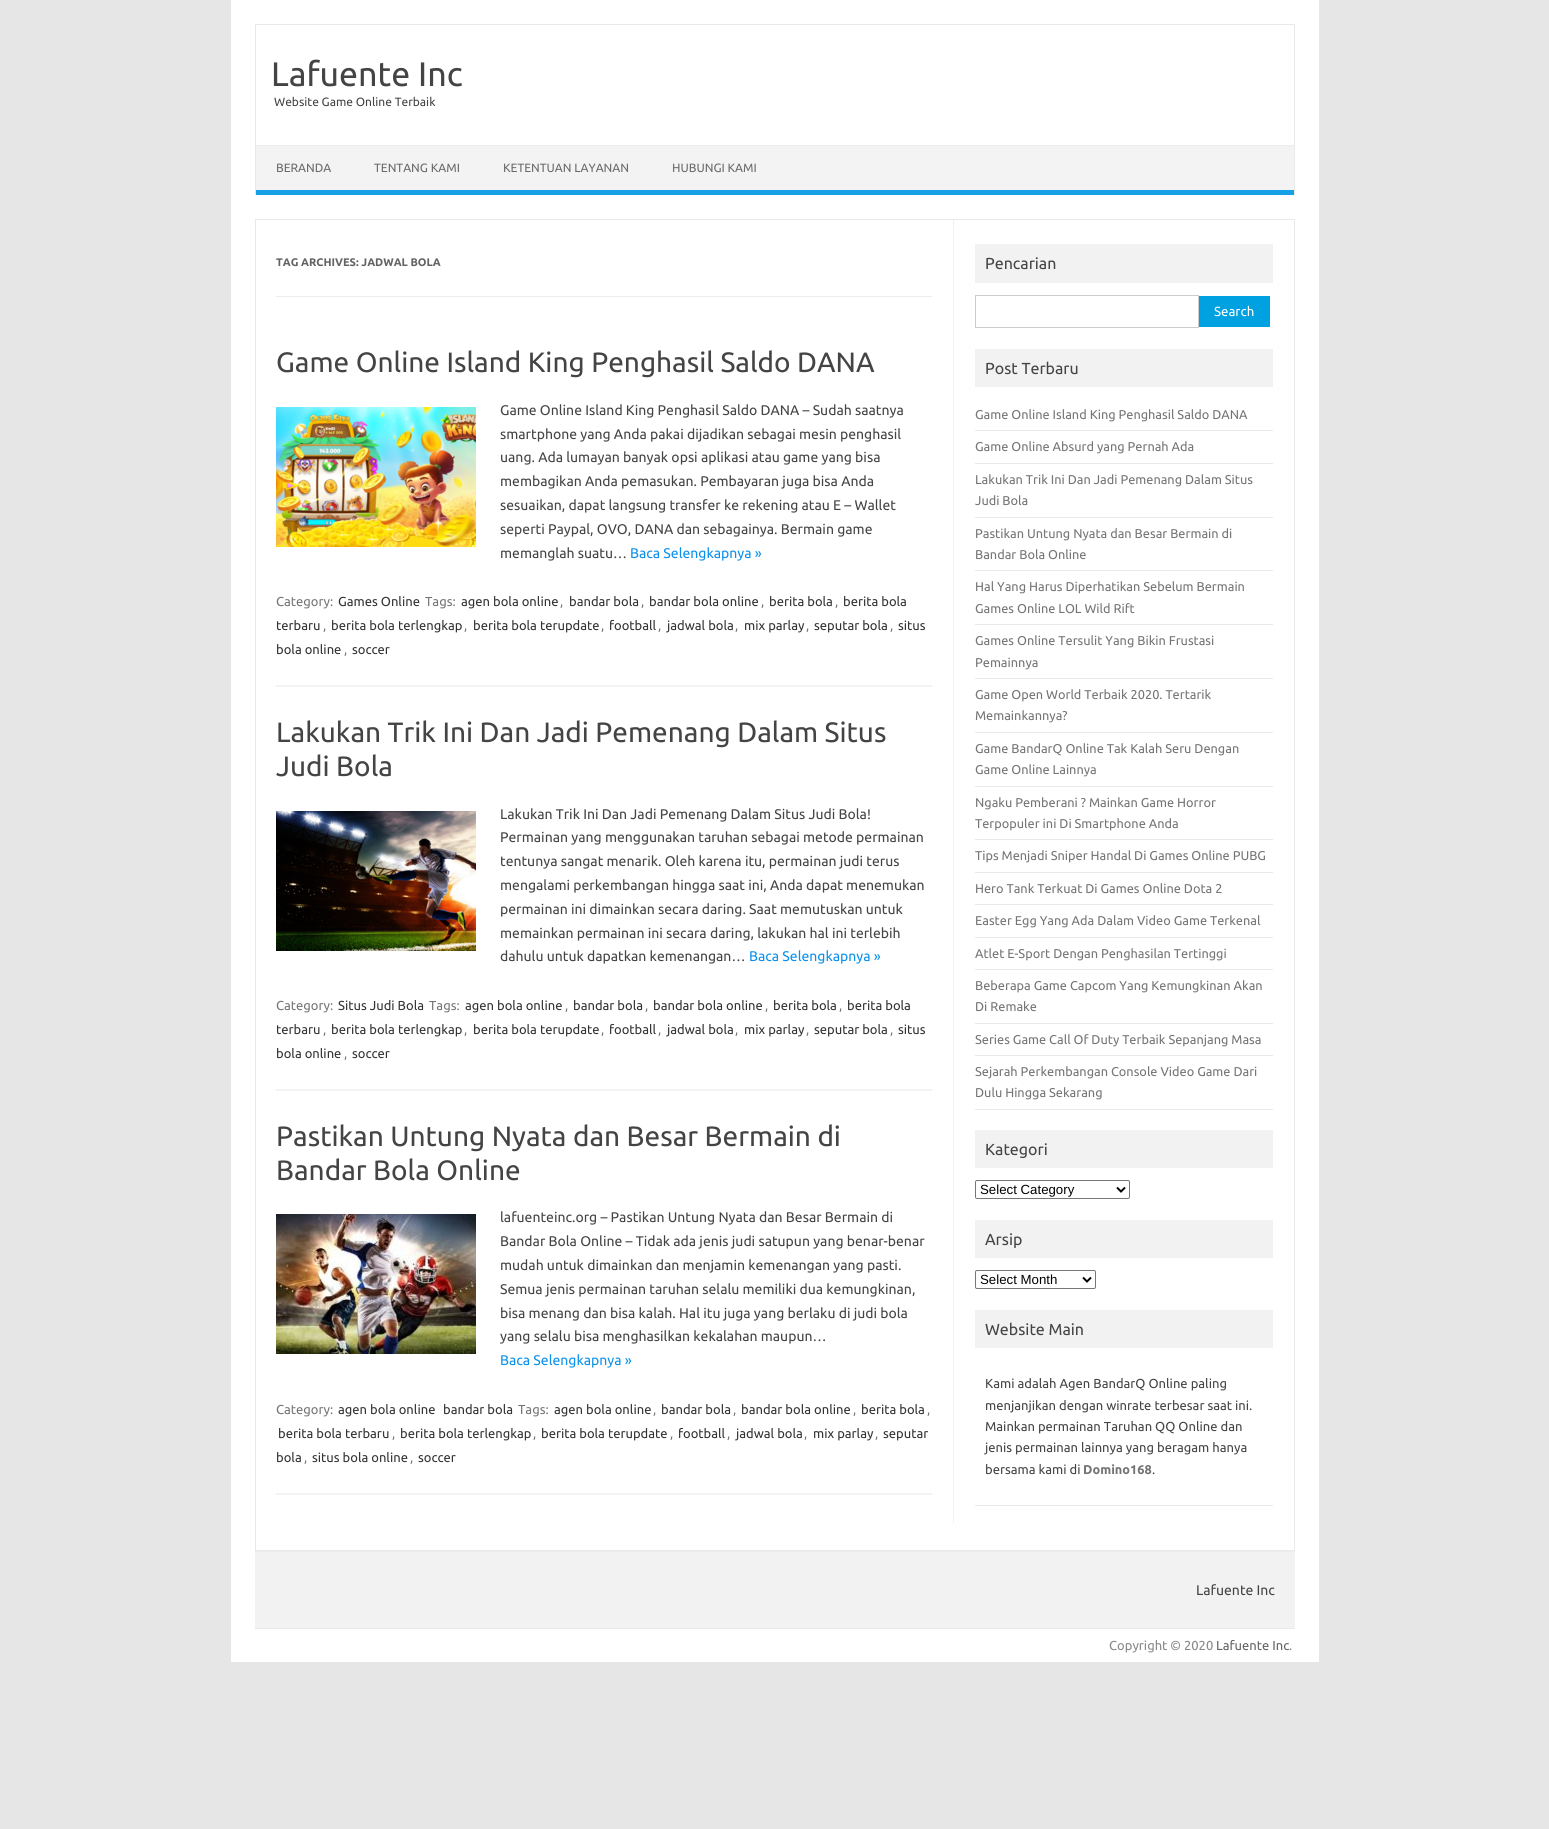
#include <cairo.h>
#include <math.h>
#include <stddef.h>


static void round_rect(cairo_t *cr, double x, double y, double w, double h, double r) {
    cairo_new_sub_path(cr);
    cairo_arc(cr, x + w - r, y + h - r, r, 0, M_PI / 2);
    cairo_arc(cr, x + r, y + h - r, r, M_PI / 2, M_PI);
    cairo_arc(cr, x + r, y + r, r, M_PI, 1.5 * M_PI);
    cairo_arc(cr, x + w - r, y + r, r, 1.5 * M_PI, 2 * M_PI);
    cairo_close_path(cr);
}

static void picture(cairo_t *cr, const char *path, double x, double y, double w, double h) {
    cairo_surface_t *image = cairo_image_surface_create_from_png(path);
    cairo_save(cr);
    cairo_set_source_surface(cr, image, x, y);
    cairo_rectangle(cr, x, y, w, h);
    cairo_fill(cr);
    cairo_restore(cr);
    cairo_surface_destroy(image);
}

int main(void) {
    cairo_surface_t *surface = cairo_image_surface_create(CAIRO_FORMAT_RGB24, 1549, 1829);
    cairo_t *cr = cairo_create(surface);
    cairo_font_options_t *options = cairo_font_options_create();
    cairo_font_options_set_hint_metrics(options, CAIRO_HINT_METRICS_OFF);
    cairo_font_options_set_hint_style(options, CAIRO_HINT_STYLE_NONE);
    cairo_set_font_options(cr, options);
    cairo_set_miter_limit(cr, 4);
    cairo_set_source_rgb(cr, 0.902, 0.902, 0.902);
    cairo_paint(cr);
    cairo_set_source_rgb(cr, 1, 1, 1);
    cairo_rectangle(cr, 231, 0, 1088, 1662);
    cairo_fill(cr);
    cairo_set_source_rgb(cr, 0.914, 0.914, 0.914);
    cairo_rectangle(cr, 255, 24, 1040, 1);
    cairo_fill(cr);
    cairo_rectangle(cr, 1294, 24, 1, 171);
    cairo_fill(cr);
    cairo_rectangle(cr, 255, 24, 1, 171);
    cairo_fill(cr);
    cairo_select_font_face(cr, "Ubuntu", CAIRO_FONT_SLANT_NORMAL, CAIRO_FONT_WEIGHT_NORMAL);
    cairo_set_font_size(cr, 34);
    cairo_set_source_rgb(cr, 0.267, 0.267, 0.267);
    cairo_move_to(cr, 271, 86);
    cairo_show_text(cr, "Lafuente Inc");
    cairo_set_font_size(cr, 12);
    cairo_move_to(cr, 274, 106);
    cairo_show_text(cr, "Website Game Online Terbaik");
    cairo_set_source_rgb(cr, 0.953, 0.953, 0.953);
    cairo_rectangle(cr, 256, 146, 1038, 44);
    cairo_fill(cr);
    cairo_set_source_rgb(cr, 0.929, 0.929, 0.929);
    cairo_rectangle(cr, 256, 145, 1038, 1);
    cairo_fill(cr);
    cairo_set_source_rgb(cr, 0.086, 0.631, 0.906);
    cairo_rectangle(cr, 256, 190, 1038, 5);
    cairo_fill(cr);
    cairo_set_source_rgb(cr, 0.416, 0.416, 0.416);
    cairo_move_to(cr, 276, 172);
    cairo_show_text(cr, "BERANDA");
    cairo_move_to(cr, 374, 172);
    cairo_show_text(cr, "TENTANG KAMI");
    cairo_move_to(cr, 503, 172);
    cairo_show_text(cr, "KETENTUAN LAYANAN");
    cairo_move_to(cr, 672, 172);
    cairo_show_text(cr, "HUBUNGI KAMI");
    cairo_rectangle(cr, 255.5, 219.5, 1039, 1331);
    cairo_set_source_rgb(cr, 0.914, 0.914, 0.914);
    cairo_set_line_width(cr, 1);
    cairo_stroke(cr);
    cairo_set_source_rgb(cr, 0.945, 0.945, 0.945);
    cairo_rectangle(cr, 953, 220, 1, 1303);
    cairo_fill(cr);
    cairo_set_source_rgb(cr, 0.929, 0.929, 0.929);
    cairo_rectangle(cr, 276, 296, 656, 1);
    cairo_fill(cr);
    cairo_select_font_face(cr, "Ubuntu", CAIRO_FONT_SLANT_NORMAL, CAIRO_FONT_WEIGHT_BOLD);
    cairo_set_font_size(cr, 11);
    cairo_set_source_rgb(cr, 0.388, 0.388, 0.388);
    cairo_move_to(cr, 276, 266);
    cairo_show_text(cr, "TAG ARCHIVES: JADWAL BOLA");
    cairo_set_source_rgb(cr, 0.953, 0.953, 0.953);
    cairo_rectangle(cr, 276, 685, 656, 2);
    cairo_fill(cr);
    cairo_select_font_face(cr, "Ubuntu", CAIRO_FONT_SLANT_NORMAL, CAIRO_FONT_WEIGHT_NORMAL);
    cairo_set_font_size(cr, 28);
    cairo_set_source_rgb(cr, 0.267, 0.267, 0.267);
    cairo_move_to(cr, 276, 372);
    cairo_show_text(cr, "Game Online Island King Penghasil Saldo DANA");
    picture(cr, "img1.png", 276, 407, 200, 140);
    cairo_set_font_size(cr, 14);
    cairo_move_to(cr, 500, 415);
    cairo_show_text(cr, "Game Online Island King Penghasil Saldo DANA – Sudah saatnya");
    cairo_move_to(cr, 500, 439);
    cairo_show_text(cr, "smartphone yang Anda pakai dijadikan sebagai mesin penghasil");
    cairo_move_to(cr, 500, 462);
    cairo_show_text(cr, "uang. Ada lumayan banyak opsi aplikasi atau game yang bisa");
    cairo_move_to(cr, 500, 486);
    cairo_show_text(cr, "membagikan Anda pemasukan. Pembayaran juga bisa Anda");
    cairo_move_to(cr, 500, 510);
    cairo_show_text(cr, "sesuaikan, dapat langsung transfer ke rekening atau E – Wallet");
    cairo_move_to(cr, 500, 534);
    cairo_show_text(cr, "seperti Paypal, OVO, DANA dan sebagainya. Bermain game");
    cairo_move_to(cr, 500, 558);
    cairo_show_text(cr, "memanglah suatu…");
    cairo_set_source_rgb(cr, 0.043, 0.569, 0.918);
    cairo_move_to(cr, 630, 558);
    cairo_show_text(cr, "Baca Selengkapnya »");
    cairo_set_font_size(cr, 13);
    cairo_set_source_rgb(cr, 0.459, 0.459, 0.459);
    cairo_move_to(cr, 276, 606);
    cairo_show_text(cr, "Category:");
    cairo_set_source_rgb(cr, 0.2, 0.2, 0.2);
    cairo_move_to(cr, 338, 606);
    cairo_show_text(cr, "Games Online");
    cairo_set_source_rgb(cr, 0.459, 0.459, 0.459);
    cairo_move_to(cr, 425, 606);
    cairo_show_text(cr, "Tags:");
    cairo_set_source_rgb(cr, 0.2, 0.2, 0.2);
    cairo_move_to(cr, 461, 606);
    cairo_show_text(cr, "agen bola online");
    cairo_set_source_rgb(cr, 0.459, 0.459, 0.459);
    cairo_move_to(cr, 560, 606);
    cairo_show_text(cr, ",");
    cairo_set_source_rgb(cr, 0.2, 0.2, 0.2);
    cairo_move_to(cr, 569, 606);
    cairo_show_text(cr, "bandar bola");
    cairo_set_source_rgb(cr, 0.459, 0.459, 0.459);
    cairo_move_to(cr, 641, 606);
    cairo_show_text(cr, ",");
    cairo_set_source_rgb(cr, 0.2, 0.2, 0.2);
    cairo_move_to(cr, 649, 606);
    cairo_show_text(cr, "bandar bola online");
    cairo_set_source_rgb(cr, 0.459, 0.459, 0.459);
    cairo_move_to(cr, 761, 606);
    cairo_show_text(cr, ",");
    cairo_set_source_rgb(cr, 0.2, 0.2, 0.2);
    cairo_move_to(cr, 769, 606);
    cairo_show_text(cr, "berita bola");
    cairo_set_source_rgb(cr, 0.459, 0.459, 0.459);
    cairo_move_to(cr, 835, 606);
    cairo_show_text(cr, ",");
    cairo_set_source_rgb(cr, 0.2, 0.2, 0.2);
    cairo_move_to(cr, 843, 606);
    cairo_show_text(cr, "berita bola");
    cairo_move_to(cr, 276, 630);
    cairo_show_text(cr, "terbaru");
    cairo_set_source_rgb(cr, 0.459, 0.459, 0.459);
    cairo_move_to(cr, 323, 630);
    cairo_show_text(cr, ",");
    cairo_set_source_rgb(cr, 0.2, 0.2, 0.2);
    cairo_move_to(cr, 331, 630);
    cairo_show_text(cr, "berita bola terlengkap");
    cairo_set_source_rgb(cr, 0.459, 0.459, 0.459);
    cairo_move_to(cr, 464, 630);
    cairo_show_text(cr, ",");
    cairo_set_source_rgb(cr, 0.2, 0.2, 0.2);
    cairo_move_to(cr, 473, 630);
    cairo_show_text(cr, "berita bola terupdate");
    cairo_set_source_rgb(cr, 0.459, 0.459, 0.459);
    cairo_move_to(cr, 601, 630);
    cairo_show_text(cr, ",");
    cairo_set_source_rgb(cr, 0.2, 0.2, 0.2);
    cairo_move_to(cr, 609, 630);
    cairo_show_text(cr, "football");
    cairo_set_source_rgb(cr, 0.459, 0.459, 0.459);
    cairo_move_to(cr, 658, 630);
    cairo_show_text(cr, ",");
    cairo_set_source_rgb(cr, 0.2, 0.2, 0.2);
    cairo_move_to(cr, 667, 630);
    cairo_show_text(cr, "jadwal bola");
    cairo_set_source_rgb(cr, 0.459, 0.459, 0.459);
    cairo_move_to(cr, 735, 630);
    cairo_show_text(cr, ",");
    cairo_set_source_rgb(cr, 0.2, 0.2, 0.2);
    cairo_move_to(cr, 744, 630);
    cairo_show_text(cr, "mix parlay");
    cairo_set_source_rgb(cr, 0.459, 0.459, 0.459);
    cairo_move_to(cr, 806, 630);
    cairo_show_text(cr, ",");
    cairo_set_source_rgb(cr, 0.2, 0.2, 0.2);
    cairo_move_to(cr, 814, 630);
    cairo_show_text(cr, "seputar bola");
    cairo_set_source_rgb(cr, 0.459, 0.459, 0.459);
    cairo_move_to(cr, 890, 630);
    cairo_show_text(cr, ",");
    cairo_set_source_rgb(cr, 0.2, 0.2, 0.2);
    cairo_move_to(cr, 898, 630);
    cairo_show_text(cr, "situs");
    cairo_move_to(cr, 276, 654);
    cairo_show_text(cr, "bola online");
    cairo_set_source_rgb(cr, 0.459, 0.459, 0.459);
    cairo_move_to(cr, 344, 654);
    cairo_show_text(cr, ",");
    cairo_set_source_rgb(cr, 0.2, 0.2, 0.2);
    cairo_move_to(cr, 352, 654);
    cairo_show_text(cr, "soccer");
    cairo_set_source_rgb(cr, 0.953, 0.953, 0.953);
    cairo_rectangle(cr, 276, 1089, 656, 2);
    cairo_fill(cr);
    cairo_set_font_size(cr, 28);
    cairo_set_source_rgb(cr, 0.267, 0.267, 0.267);
    cairo_move_to(cr, 276, 742);
    cairo_show_text(cr, "Lakukan Trik Ini Dan Jadi Pemenang Dalam Situs");
    cairo_move_to(cr, 276, 776);
    cairo_show_text(cr, "Judi Bola");
    picture(cr, "img2.png", 276, 811, 200, 140);
    cairo_set_font_size(cr, 14);
    cairo_move_to(cr, 500, 819);
    cairo_show_text(cr, "Lakukan Trik Ini Dan Jadi Pemenang Dalam Situs Judi Bola!");
    cairo_move_to(cr, 500, 842);
    cairo_show_text(cr, "Permainan yang menggunakan taruhan sebagai metode permainan");
    cairo_move_to(cr, 500, 866);
    cairo_show_text(cr, "tentunya sangat menarik. Oleh karena itu, permainan judi terus");
    cairo_move_to(cr, 500, 890);
    cairo_show_text(cr, "mengalami perkembangan hingga saat ini, Anda dapat menemukan");
    cairo_move_to(cr, 500, 914);
    cairo_show_text(cr, "permainan ini dimainkan secara daring. Saat memutuskan untuk");
    cairo_move_to(cr, 500, 938);
    cairo_show_text(cr, "memainkan permainan ini secara daring, lakukan hal ini terlebih");
    cairo_move_to(cr, 500, 961);
    cairo_show_text(cr, "dahulu untuk dapatkan kemenangan…");
    cairo_set_source_rgb(cr, 0.043, 0.569, 0.918);
    cairo_move_to(cr, 749, 961);
    cairo_show_text(cr, "Baca Selengkapnya »");
    cairo_set_font_size(cr, 13);
    cairo_set_source_rgb(cr, 0.459, 0.459, 0.459);
    cairo_move_to(cr, 276, 1010);
    cairo_show_text(cr, "Category:");
    cairo_set_source_rgb(cr, 0.2, 0.2, 0.2);
    cairo_move_to(cr, 338, 1010);
    cairo_show_text(cr, "Situs Judi Bola");
    cairo_set_source_rgb(cr, 0.459, 0.459, 0.459);
    cairo_move_to(cr, 429, 1010);
    cairo_show_text(cr, "Tags:");
    cairo_set_source_rgb(cr, 0.2, 0.2, 0.2);
    cairo_move_to(cr, 465, 1010);
    cairo_show_text(cr, "agen bola online");
    cairo_set_source_rgb(cr, 0.459, 0.459, 0.459);
    cairo_move_to(cr, 565, 1010);
    cairo_show_text(cr, ",");
    cairo_set_source_rgb(cr, 0.2, 0.2, 0.2);
    cairo_move_to(cr, 573, 1010);
    cairo_show_text(cr, "bandar bola");
    cairo_set_source_rgb(cr, 0.459, 0.459, 0.459);
    cairo_move_to(cr, 645, 1010);
    cairo_show_text(cr, ",");
    cairo_set_source_rgb(cr, 0.2, 0.2, 0.2);
    cairo_move_to(cr, 653, 1010);
    cairo_show_text(cr, "bandar bola online");
    cairo_set_source_rgb(cr, 0.459, 0.459, 0.459);
    cairo_move_to(cr, 765, 1010);
    cairo_show_text(cr, ",");
    cairo_set_source_rgb(cr, 0.2, 0.2, 0.2);
    cairo_move_to(cr, 773, 1010);
    cairo_show_text(cr, "berita bola");
    cairo_set_source_rgb(cr, 0.459, 0.459, 0.459);
    cairo_move_to(cr, 839, 1010);
    cairo_show_text(cr, ",");
    cairo_set_source_rgb(cr, 0.2, 0.2, 0.2);
    cairo_move_to(cr, 847, 1010);
    cairo_show_text(cr, "berita bola");
    cairo_move_to(cr, 276, 1034);
    cairo_show_text(cr, "terbaru");
    cairo_set_source_rgb(cr, 0.459, 0.459, 0.459);
    cairo_move_to(cr, 323, 1034);
    cairo_show_text(cr, ",");
    cairo_set_source_rgb(cr, 0.2, 0.2, 0.2);
    cairo_move_to(cr, 331, 1034);
    cairo_show_text(cr, "berita bola terlengkap");
    cairo_set_source_rgb(cr, 0.459, 0.459, 0.459);
    cairo_move_to(cr, 464, 1034);
    cairo_show_text(cr, ",");
    cairo_set_source_rgb(cr, 0.2, 0.2, 0.2);
    cairo_move_to(cr, 473, 1034);
    cairo_show_text(cr, "berita bola terupdate");
    cairo_set_source_rgb(cr, 0.459, 0.459, 0.459);
    cairo_move_to(cr, 601, 1034);
    cairo_show_text(cr, ",");
    cairo_set_source_rgb(cr, 0.2, 0.2, 0.2);
    cairo_move_to(cr, 609, 1034);
    cairo_show_text(cr, "football");
    cairo_set_source_rgb(cr, 0.459, 0.459, 0.459);
    cairo_move_to(cr, 658, 1034);
    cairo_show_text(cr, ",");
    cairo_set_source_rgb(cr, 0.2, 0.2, 0.2);
    cairo_move_to(cr, 667, 1034);
    cairo_show_text(cr, "jadwal bola");
    cairo_set_source_rgb(cr, 0.459, 0.459, 0.459);
    cairo_move_to(cr, 735, 1034);
    cairo_show_text(cr, ",");
    cairo_set_source_rgb(cr, 0.2, 0.2, 0.2);
    cairo_move_to(cr, 744, 1034);
    cairo_show_text(cr, "mix parlay");
    cairo_set_source_rgb(cr, 0.459, 0.459, 0.459);
    cairo_move_to(cr, 806, 1034);
    cairo_show_text(cr, ",");
    cairo_set_source_rgb(cr, 0.2, 0.2, 0.2);
    cairo_move_to(cr, 814, 1034);
    cairo_show_text(cr, "seputar bola");
    cairo_set_source_rgb(cr, 0.459, 0.459, 0.459);
    cairo_move_to(cr, 890, 1034);
    cairo_show_text(cr, ",");
    cairo_set_source_rgb(cr, 0.2, 0.2, 0.2);
    cairo_move_to(cr, 898, 1034);
    cairo_show_text(cr, "situs");
    cairo_move_to(cr, 276, 1058);
    cairo_show_text(cr, "bola online");
    cairo_set_source_rgb(cr, 0.459, 0.459, 0.459);
    cairo_move_to(cr, 344, 1058);
    cairo_show_text(cr, ",");
    cairo_set_source_rgb(cr, 0.2, 0.2, 0.2);
    cairo_move_to(cr, 352, 1058);
    cairo_show_text(cr, "soccer");
    cairo_set_source_rgb(cr, 0.953, 0.953, 0.953);
    cairo_rectangle(cr, 276, 1493, 656, 2);
    cairo_fill(cr);
    cairo_set_font_size(cr, 28);
    cairo_set_source_rgb(cr, 0.267, 0.267, 0.267);
    cairo_move_to(cr, 276, 1146);
    cairo_show_text(cr, "Pastikan Untung Nyata dan Besar Bermain di");
    cairo_move_to(cr, 276, 1180);
    cairo_show_text(cr, "Bandar Bola Online");
    picture(cr, "img3.png", 276, 1214, 200, 140);
    cairo_set_font_size(cr, 14);
    cairo_move_to(cr, 500, 1222);
    cairo_show_text(cr, "lafuenteinc.org – Pastikan Untung Nyata dan Besar Bermain di");
    cairo_move_to(cr, 500, 1246);
    cairo_show_text(cr, "Bandar Bola Online – Tidak ada jenis judi satupun yang benar-benar");
    cairo_move_to(cr, 500, 1270);
    cairo_show_text(cr, "mudah untuk dimainkan dan menjamin kemenangan yang pasti.");
    cairo_move_to(cr, 500, 1294);
    cairo_show_text(cr, "Semua jenis permainan taruhan selalu memiliki dua kemungkinan,");
    cairo_move_to(cr, 500, 1318);
    cairo_show_text(cr, "bisa menang dan bisa kalah. Hal itu juga yang berlaku di judi bola");
    cairo_move_to(cr, 500, 1341);
    cairo_show_text(cr, "yang selalu bisa menghasilkan kekalahan maupun…");
    cairo_set_source_rgb(cr, 0.043, 0.569, 0.918);
    cairo_move_to(cr, 500, 1365);
    cairo_show_text(cr, "Baca Selengkapnya »");
    cairo_set_font_size(cr, 13);
    cairo_set_source_rgb(cr, 0.459, 0.459, 0.459);
    cairo_move_to(cr, 276, 1414);
    cairo_show_text(cr, "Category:");
    cairo_set_source_rgb(cr, 0.2, 0.2, 0.2);
    cairo_move_to(cr, 338, 1414);
    cairo_show_text(cr, "agen bola online");
    cairo_move_to(cr, 443, 1414);
    cairo_show_text(cr, "bandar bola");
    cairo_set_source_rgb(cr, 0.459, 0.459, 0.459);
    cairo_move_to(cr, 518, 1414);
    cairo_show_text(cr, "Tags:");
    cairo_set_source_rgb(cr, 0.2, 0.2, 0.2);
    cairo_move_to(cr, 554, 1414);
    cairo_show_text(cr, "agen bola online");
    cairo_set_source_rgb(cr, 0.459, 0.459, 0.459);
    cairo_move_to(cr, 653, 1414);
    cairo_show_text(cr, ",");
    cairo_set_source_rgb(cr, 0.2, 0.2, 0.2);
    cairo_move_to(cr, 661, 1414);
    cairo_show_text(cr, "bandar bola");
    cairo_set_source_rgb(cr, 0.459, 0.459, 0.459);
    cairo_move_to(cr, 733, 1414);
    cairo_show_text(cr, ",");
    cairo_set_source_rgb(cr, 0.2, 0.2, 0.2);
    cairo_move_to(cr, 741, 1414);
    cairo_show_text(cr, "bandar bola online");
    cairo_set_source_rgb(cr, 0.459, 0.459, 0.459);
    cairo_move_to(cr, 853, 1414);
    cairo_show_text(cr, ",");
    cairo_set_source_rgb(cr, 0.2, 0.2, 0.2);
    cairo_move_to(cr, 861, 1414);
    cairo_show_text(cr, "berita bola");
    cairo_set_source_rgb(cr, 0.459, 0.459, 0.459);
    cairo_move_to(cr, 927, 1414);
    cairo_show_text(cr, ",");
    cairo_set_source_rgb(cr, 0.2, 0.2, 0.2);
    cairo_move_to(cr, 278, 1438);
    cairo_show_text(cr, "berita bola terbaru");
    cairo_set_source_rgb(cr, 0.459, 0.459, 0.459);
    cairo_move_to(cr, 392, 1438);
    cairo_show_text(cr, ",");
    cairo_set_source_rgb(cr, 0.2, 0.2, 0.2);
    cairo_move_to(cr, 400, 1438);
    cairo_show_text(cr, "berita bola terlengkap");
    cairo_set_source_rgb(cr, 0.459, 0.459, 0.459);
    cairo_move_to(cr, 533, 1438);
    cairo_show_text(cr, ",");
    cairo_set_source_rgb(cr, 0.2, 0.2, 0.2);
    cairo_move_to(cr, 541, 1438);
    cairo_show_text(cr, "berita bola terupdate");
    cairo_set_source_rgb(cr, 0.459, 0.459, 0.459);
    cairo_move_to(cr, 670, 1438);
    cairo_show_text(cr, ",");
    cairo_set_source_rgb(cr, 0.2, 0.2, 0.2);
    cairo_move_to(cr, 678, 1438);
    cairo_show_text(cr, "football");
    cairo_set_source_rgb(cr, 0.459, 0.459, 0.459);
    cairo_move_to(cr, 727, 1438);
    cairo_show_text(cr, ",");
    cairo_set_source_rgb(cr, 0.2, 0.2, 0.2);
    cairo_move_to(cr, 736, 1438);
    cairo_show_text(cr, "jadwal bola");
    cairo_set_source_rgb(cr, 0.459, 0.459, 0.459);
    cairo_move_to(cr, 804, 1438);
    cairo_show_text(cr, ",");
    cairo_set_source_rgb(cr, 0.2, 0.2, 0.2);
    cairo_move_to(cr, 813, 1438);
    cairo_show_text(cr, "mix parlay");
    cairo_set_source_rgb(cr, 0.459, 0.459, 0.459);
    cairo_move_to(cr, 875, 1438);
    cairo_show_text(cr, ",");
    cairo_set_source_rgb(cr, 0.2, 0.2, 0.2);
    cairo_move_to(cr, 883, 1438);
    cairo_show_text(cr, "seputar");
    cairo_move_to(cr, 276, 1462);
    cairo_show_text(cr, "bola");
    cairo_set_source_rgb(cr, 0.459, 0.459, 0.459);
    cairo_move_to(cr, 304, 1462);
    cairo_show_text(cr, ",");
    cairo_set_source_rgb(cr, 0.2, 0.2, 0.2);
    cairo_move_to(cr, 312, 1462);
    cairo_show_text(cr, "situs bola online");
    cairo_set_source_rgb(cr, 0.459, 0.459, 0.459);
    cairo_move_to(cr, 410, 1462);
    cairo_show_text(cr, ",");
    cairo_set_source_rgb(cr, 0.2, 0.2, 0.2);
    cairo_move_to(cr, 418, 1462);
    cairo_show_text(cr, "soccer");
    cairo_set_source_rgb(cr, 0.949, 0.949, 0.949);
    cairo_rectangle(cr, 975, 244, 298, 39);
    cairo_fill(cr);
    cairo_set_font_size(cr, 16);
    cairo_set_source_rgb(cr, 0.267, 0.267, 0.267);
    cairo_move_to(cr, 985, 269);
    cairo_show_text(cr, "Pencarian");
    cairo_rectangle(cr, 975.5, 295.5, 223, 32);
    cairo_set_source_rgb(cr, 0.8, 0.8, 0.8);
    cairo_stroke(cr);
    cairo_set_source_rgb(cr, 0, 0.631, 0.878);
    cairo_rectangle(cr, 1199, 296, 71, 31);
    cairo_fill(cr);
    cairo_set_font_size(cr, 13.25);
    cairo_set_source_rgb(cr, 1, 1, 1);
    cairo_move_to(cr, 1214, 316);
    cairo_show_text(cr, "Search");
    cairo_set_source_rgb(cr, 0.949, 0.949, 0.949);
    cairo_rectangle(cr, 975, 349, 298, 38);
    cairo_fill(cr);
    cairo_set_font_size(cr, 16);
    cairo_set_source_rgb(cr, 0.267, 0.267, 0.267);
    cairo_move_to(cr, 985, 374);
    cairo_show_text(cr, "Post Terbaru");
    cairo_set_source_rgb(cr, 0.914, 0.914, 0.914);
    cairo_rectangle(cr, 975, 430, 298, 1);
    cairo_fill(cr);
    cairo_set_font_size(cr, 12.75);
    cairo_set_source_rgb(cr, 0.459, 0.459, 0.459);
    cairo_move_to(cr, 975, 419);
    cairo_show_text(cr, "Game Online Island King Penghasil Saldo DANA");
    cairo_set_source_rgb(cr, 0.914, 0.914, 0.914);
    cairo_rectangle(cr, 975, 463, 298, 1);
    cairo_fill(cr);
    cairo_set_source_rgb(cr, 0.459, 0.459, 0.459);
    cairo_move_to(cr, 975, 451);
    cairo_show_text(cr, "Game Online Absurd yang Pernah Ada");
    cairo_set_source_rgb(cr, 0.914, 0.914, 0.914);
    cairo_rectangle(cr, 975, 517, 298, 1);
    cairo_fill(cr);
    cairo_set_source_rgb(cr, 0.459, 0.459, 0.459);
    cairo_move_to(cr, 975, 484);
    cairo_show_text(cr, "Lakukan Trik Ini Dan Jadi Pemenang Dalam Situs");
    cairo_move_to(cr, 975, 505);
    cairo_show_text(cr, "Judi Bola");
    cairo_set_source_rgb(cr, 0.914, 0.914, 0.914);
    cairo_rectangle(cr, 975, 570, 298, 1);
    cairo_fill(cr);
    cairo_set_source_rgb(cr, 0.459, 0.459, 0.459);
    cairo_move_to(cr, 975, 538);
    cairo_show_text(cr, "Pastikan Untung Nyata dan Besar Bermain di");
    cairo_move_to(cr, 975, 559);
    cairo_show_text(cr, "Bandar Bola Online");
    cairo_set_source_rgb(cr, 0.914, 0.914, 0.914);
    cairo_rectangle(cr, 975, 624, 298, 1);
    cairo_fill(cr);
    cairo_set_source_rgb(cr, 0.459, 0.459, 0.459);
    cairo_move_to(cr, 975, 591);
    cairo_show_text(cr, "Hal Yang Harus Diperhatikan Sebelum Bermain");
    cairo_move_to(cr, 975, 613);
    cairo_show_text(cr, "Games Online LOL Wild Rift");
    cairo_set_source_rgb(cr, 0.914, 0.914, 0.914);
    cairo_rectangle(cr, 975, 678, 298, 1);
    cairo_fill(cr);
    cairo_set_source_rgb(cr, 0.459, 0.459, 0.459);
    cairo_move_to(cr, 975, 645);
    cairo_show_text(cr, "Games Online Tersulit Yang Bikin Frustasi");
    cairo_move_to(cr, 975, 667);
    cairo_show_text(cr, "Pemainnya");
    cairo_set_source_rgb(cr, 0.914, 0.914, 0.914);
    cairo_rectangle(cr, 975, 732, 298, 1);
    cairo_fill(cr);
    cairo_set_source_rgb(cr, 0.459, 0.459, 0.459);
    cairo_move_to(cr, 975, 699);
    cairo_show_text(cr, "Game Open World Terbaik 2020. Tertarik");
    cairo_move_to(cr, 975, 720);
    cairo_show_text(cr, "Memainkannya?");
    cairo_set_source_rgb(cr, 0.914, 0.914, 0.914);
    cairo_rectangle(cr, 975, 786, 298, 1);
    cairo_fill(cr);
    cairo_set_source_rgb(cr, 0.459, 0.459, 0.459);
    cairo_move_to(cr, 975, 753);
    cairo_show_text(cr, "Game BandarQ Online Tak Kalah Seru Dengan");
    cairo_move_to(cr, 975, 774);
    cairo_show_text(cr, "Game Online Lainnya");
    cairo_set_source_rgb(cr, 0.914, 0.914, 0.914);
    cairo_rectangle(cr, 975, 839, 298, 1);
    cairo_fill(cr);
    cairo_set_source_rgb(cr, 0.459, 0.459, 0.459);
    cairo_move_to(cr, 975, 807);
    cairo_show_text(cr, "Ngaku Pemberani ? Mainkan Game Horror");
    cairo_move_to(cr, 975, 828);
    cairo_show_text(cr, "Terpopuler ini Di Smartphone Anda");
    cairo_set_source_rgb(cr, 0.914, 0.914, 0.914);
    cairo_rectangle(cr, 975, 872, 298, 1);
    cairo_fill(cr);
    cairo_set_source_rgb(cr, 0.459, 0.459, 0.459);
    cairo_move_to(cr, 975, 860);
    cairo_show_text(cr, "Tips Menjadi Sniper Handal Di Games Online PUBG");
    cairo_set_source_rgb(cr, 0.914, 0.914, 0.914);
    cairo_rectangle(cr, 975, 904, 298, 1);
    cairo_fill(cr);
    cairo_set_source_rgb(cr, 0.459, 0.459, 0.459);
    cairo_move_to(cr, 975, 893);
    cairo_show_text(cr, "Hero Tank Terkuat Di Games Online Dota 2");
    cairo_set_source_rgb(cr, 0.914, 0.914, 0.914);
    cairo_rectangle(cr, 975, 937, 298, 1);
    cairo_fill(cr);
    cairo_set_source_rgb(cr, 0.459, 0.459, 0.459);
    cairo_move_to(cr, 975, 925);
    cairo_show_text(cr, "Easter Egg Yang Ada Dalam Video Game Terkenal");
    cairo_set_source_rgb(cr, 0.914, 0.914, 0.914);
    cairo_rectangle(cr, 975, 969, 298, 1);
    cairo_fill(cr);
    cairo_set_source_rgb(cr, 0.459, 0.459, 0.459);
    cairo_move_to(cr, 975, 958);
    cairo_show_text(cr, "Atlet E-Sport Dengan Penghasilan Tertinggi");
    cairo_set_source_rgb(cr, 0.914, 0.914, 0.914);
    cairo_rectangle(cr, 975, 1023, 298, 1);
    cairo_fill(cr);
    cairo_set_source_rgb(cr, 0.459, 0.459, 0.459);
    cairo_move_to(cr, 975, 990);
    cairo_show_text(cr, "Beberapa Game Capcom Yang Kemungkinan Akan");
    cairo_move_to(cr, 975, 1011);
    cairo_show_text(cr, "Di Remake");
    cairo_set_source_rgb(cr, 0.914, 0.914, 0.914);
    cairo_rectangle(cr, 975, 1055, 298, 1);
    cairo_fill(cr);
    cairo_set_source_rgb(cr, 0.459, 0.459, 0.459);
    cairo_move_to(cr, 975, 1044);
    cairo_show_text(cr, "Series Game Call Of Duty Terbaik Sepanjang Masa");
    cairo_set_source_rgb(cr, 0.914, 0.914, 0.914);
    cairo_rectangle(cr, 975, 1109, 298, 1);
    cairo_fill(cr);
    cairo_set_source_rgb(cr, 0.459, 0.459, 0.459);
    cairo_move_to(cr, 975, 1076);
    cairo_show_text(cr, "Sejarah Perkembangan Console Video Game Dari");
    cairo_move_to(cr, 975, 1097);
    cairo_show_text(cr, "Dulu Hingga Sekarang");
    cairo_set_source_rgb(cr, 0.949, 0.949, 0.949);
    cairo_rectangle(cr, 975, 1130, 298, 38);
    cairo_fill(cr);
    cairo_set_font_size(cr, 16);
    cairo_set_source_rgb(cr, 0.267, 0.267, 0.267);
    cairo_move_to(cr, 985, 1155);
    cairo_show_text(cr, "Kategori");
    round_rect(cr, 975.5, 1180.5, 154, 18, 1.5);
    cairo_set_source_rgb(cr, 0.463, 0.463, 0.463);
    cairo_stroke(cr);
    cairo_new_path(cr);
    cairo_move_to(cr, 1117, 1187.5);
    cairo_line_to(cr, 1121, 1191.5);
    cairo_line_to(cr, 1125, 1187.5);
    cairo_set_source_rgb(cr, 0, 0, 0);
    cairo_set_line_width(cr, 2);
    cairo_stroke(cr);
    cairo_select_font_face(cr, "Liberation Sans", CAIRO_FONT_SLANT_NORMAL, CAIRO_FONT_WEIGHT_NORMAL);
    cairo_set_font_size(cr, 13.25);
    cairo_move_to(cr, 980, 1194);
    cairo_show_text(cr, "Select Category");
    cairo_set_source_rgb(cr, 0.949, 0.949, 0.949);
    cairo_rectangle(cr, 975, 1220, 298, 38);
    cairo_fill(cr);
    cairo_select_font_face(cr, "Ubuntu", CAIRO_FONT_SLANT_NORMAL, CAIRO_FONT_WEIGHT_NORMAL);
    cairo_set_font_size(cr, 16);
    cairo_set_source_rgb(cr, 0.267, 0.267, 0.267);
    cairo_move_to(cr, 985, 1245);
    cairo_show_text(cr, "Arsip");
    round_rect(cr, 975.5, 1270.5, 120, 18, 1.5);
    cairo_set_source_rgb(cr, 0.463, 0.463, 0.463);
    cairo_set_line_width(cr, 1);
    cairo_stroke(cr);
    cairo_new_path(cr);
    cairo_move_to(cr, 1083, 1277.5);
    cairo_line_to(cr, 1087, 1281.5);
    cairo_line_to(cr, 1091, 1277.5);
    cairo_set_source_rgb(cr, 0, 0, 0);
    cairo_set_line_width(cr, 2);
    cairo_stroke(cr);
    cairo_select_font_face(cr, "Liberation Sans", CAIRO_FONT_SLANT_NORMAL, CAIRO_FONT_WEIGHT_NORMAL);
    cairo_set_font_size(cr, 13.25);
    cairo_move_to(cr, 980, 1284);
    cairo_show_text(cr, "Select Month");
    cairo_set_source_rgb(cr, 0.949, 0.949, 0.949);
    cairo_rectangle(cr, 975, 1310, 298, 38);
    cairo_fill(cr);
    cairo_select_font_face(cr, "Ubuntu", CAIRO_FONT_SLANT_NORMAL, CAIRO_FONT_WEIGHT_NORMAL);
    cairo_set_font_size(cr, 16);
    cairo_set_source_rgb(cr, 0.267, 0.267, 0.267);
    cairo_move_to(cr, 985, 1335);
    cairo_show_text(cr, "Website Main");
    cairo_set_source_rgb(cr, 0.914, 0.914, 0.914);
    cairo_rectangle(cr, 975, 1505, 298, 1);
    cairo_fill(cr);
    cairo_set_font_size(cr, 13);
    cairo_set_source_rgb(cr, 0.267, 0.267, 0.267);
    cairo_move_to(cr, 985, 1388);
    cairo_show_text(cr, "Kami adalah Agen BandarQ Online paling");
    cairo_move_to(cr, 985, 1410);
    cairo_show_text(cr, "menjanjikan dengan winrate terbesar saat ini.");
    cairo_move_to(cr, 985, 1431);
    cairo_show_text(cr, "Mainkan permainan Taruhan QQ Online dan");
    cairo_move_to(cr, 985, 1452);
    cairo_show_text(cr, "jenis permainan lainnya yang beragam hanya");
    cairo_move_to(cr, 985, 1474);
    cairo_show_text(cr, "bersama kami di");
    cairo_select_font_face(cr, "Ubuntu", CAIRO_FONT_SLANT_NORMAL, CAIRO_FONT_WEIGHT_BOLD);
    cairo_set_font_size(cr, 12.75);
    cairo_set_source_rgb(cr, 0.459, 0.459, 0.459);
    cairo_move_to(cr, 1083, 1474);
    cairo_show_text(cr, "Domino168");
    cairo_select_font_face(cr, "Ubuntu", CAIRO_FONT_SLANT_NORMAL, CAIRO_FONT_WEIGHT_NORMAL);
    cairo_set_font_size(cr, 13);
    cairo_set_source_rgb(cr, 0.267, 0.267, 0.267);
    cairo_move_to(cr, 1152, 1474);
    cairo_show_text(cr, ".");
    cairo_set_source_rgb(cr, 0.949, 0.949, 0.949);
    cairo_rectangle(cr, 255, 1552, 1040, 76);
    cairo_fill(cr);
    cairo_set_source_rgb(cr, 0.929, 0.929, 0.929);
    cairo_rectangle(cr, 255, 1551, 1040, 1);
    cairo_fill(cr);
    cairo_set_source_rgb(cr, 0.914, 0.914, 0.914);
    cairo_rectangle(cr, 255, 1628, 1040, 1);
    cairo_fill(cr);
    cairo_set_font_size(cr, 14);
    cairo_set_source_rgb(cr, 0.267, 0.267, 0.267);
    cairo_move_to(cr, 1196, 1595);
    cairo_show_text(cr, "Lafuente Inc");
    cairo_set_font_size(cr, 13);
    cairo_set_source_rgb(cr, 0.533, 0.533, 0.533);
    cairo_move_to(cr, 1109, 1650);
    cairo_show_text(cr, "Copyright © 2020");
    cairo_set_source_rgb(cr, 0.388, 0.388, 0.388);
    cairo_move_to(cr, 1216, 1650);
    cairo_show_text(cr, "Lafuente Inc");
    cairo_set_source_rgb(cr, 0.533, 0.533, 0.533);
    cairo_move_to(cr, 1289, 1650);
    cairo_show_text(cr, ".");
    cairo_surface_write_to_png(surface, "page.png");
    cairo_font_options_destroy(options);
    cairo_destroy(cr);
    cairo_surface_destroy(surface);
    return 0;
}
